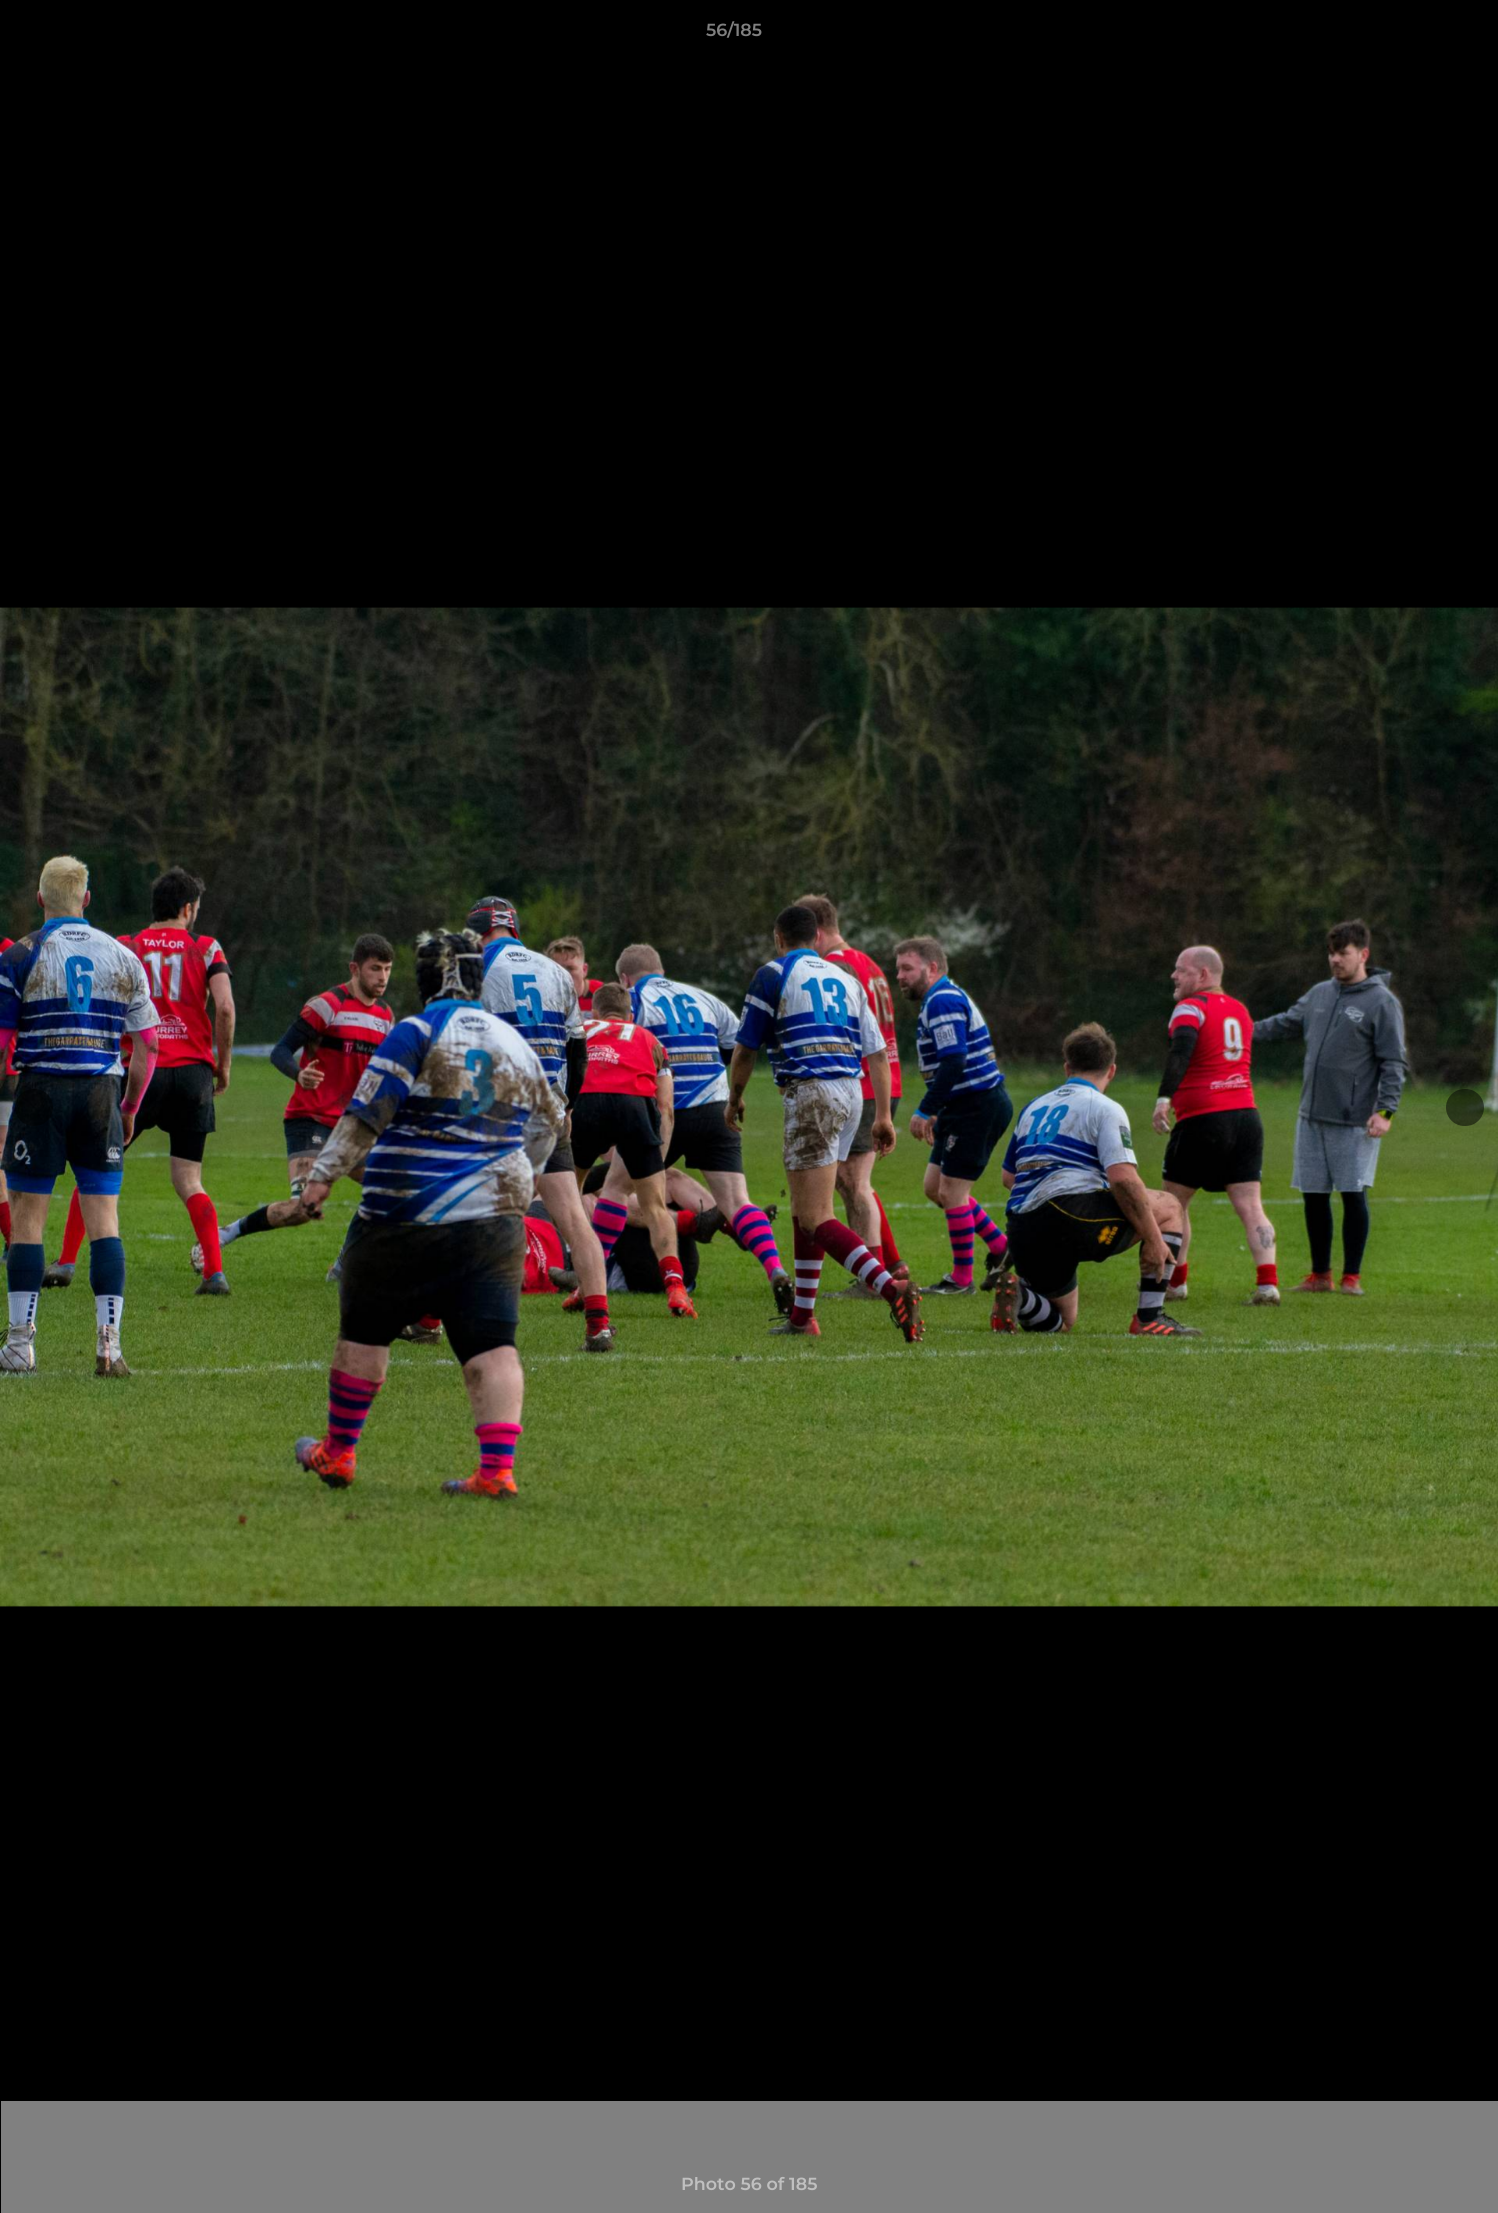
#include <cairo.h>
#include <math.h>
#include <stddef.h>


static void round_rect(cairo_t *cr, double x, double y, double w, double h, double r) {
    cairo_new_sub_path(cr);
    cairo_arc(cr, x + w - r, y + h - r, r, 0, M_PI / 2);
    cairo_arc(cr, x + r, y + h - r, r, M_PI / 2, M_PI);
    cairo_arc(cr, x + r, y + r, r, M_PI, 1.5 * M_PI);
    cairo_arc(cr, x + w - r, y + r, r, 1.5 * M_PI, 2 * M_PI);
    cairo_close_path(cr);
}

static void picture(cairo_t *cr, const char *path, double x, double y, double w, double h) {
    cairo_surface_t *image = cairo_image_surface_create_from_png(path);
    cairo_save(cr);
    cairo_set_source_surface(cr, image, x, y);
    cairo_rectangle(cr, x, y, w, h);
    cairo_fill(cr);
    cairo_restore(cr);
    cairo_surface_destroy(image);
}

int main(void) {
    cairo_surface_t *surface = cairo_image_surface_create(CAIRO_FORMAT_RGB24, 1498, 2213);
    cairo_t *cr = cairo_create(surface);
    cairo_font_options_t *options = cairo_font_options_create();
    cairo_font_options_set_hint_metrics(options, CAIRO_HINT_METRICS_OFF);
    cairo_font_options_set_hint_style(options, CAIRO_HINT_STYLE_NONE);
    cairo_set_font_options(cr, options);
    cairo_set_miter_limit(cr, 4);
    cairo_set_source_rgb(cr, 0, 0, 0);
    cairo_paint(cr);
    cairo_set_source_rgb(cr, 0.502, 0.502, 0.502);
    cairo_rectangle(cr, 1, 2101, 1497, 112);
    cairo_fill(cr);
    cairo_select_font_face(cr, "Montserrat SemiBold", CAIRO_FONT_SLANT_NORMAL, CAIRO_FONT_WEIGHT_NORMAL);
    cairo_set_font_size(cr, 17.5);
    cairo_move_to(cr, 706, 36);
    cairo_show_text(cr, "56/185");
    picture(cr, "img1.png", 0, 607, 1498, 1000);
    cairo_set_source_rgba(cr, 0, 0, 0, 0.5);
    round_rect(cr, 15, 1089, 38, 37, 18.5);
    cairo_fill(cr);
    round_rect(cr, 1446, 1089, 38, 37, 18.5);
    cairo_fill(cr);
    cairo_set_source_rgb(cr, 0.753, 0.753, 0.753);
    cairo_move_to(cr, 681, 2190);
    cairo_show_text(cr, "Photo 56 of 185");
    cairo_surface_write_to_png(surface, "page.png");
    cairo_font_options_destroy(options);
    cairo_destroy(cr);
    cairo_surface_destroy(surface);
    return 0;
}
